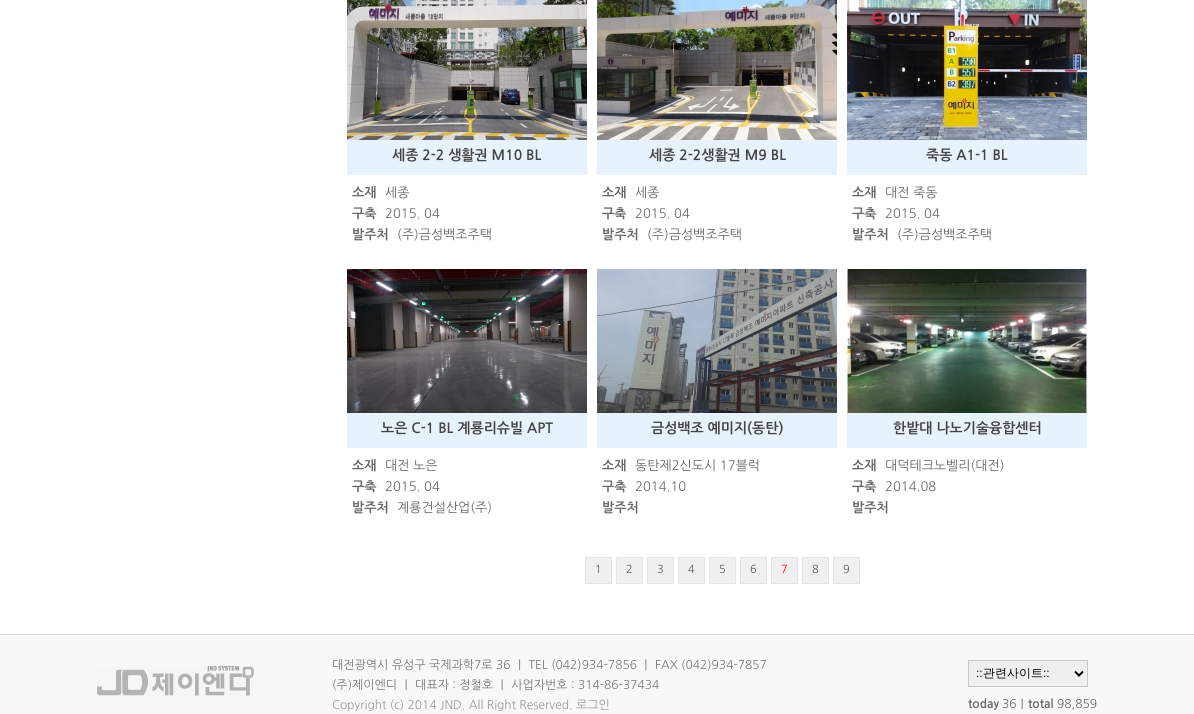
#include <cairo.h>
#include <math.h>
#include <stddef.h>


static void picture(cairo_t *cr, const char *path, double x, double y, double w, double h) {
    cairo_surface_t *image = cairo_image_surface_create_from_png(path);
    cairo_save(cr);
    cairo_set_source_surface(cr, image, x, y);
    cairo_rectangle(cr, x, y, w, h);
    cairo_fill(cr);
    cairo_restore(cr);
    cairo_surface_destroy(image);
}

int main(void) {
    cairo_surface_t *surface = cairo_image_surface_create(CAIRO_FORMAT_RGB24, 1194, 714);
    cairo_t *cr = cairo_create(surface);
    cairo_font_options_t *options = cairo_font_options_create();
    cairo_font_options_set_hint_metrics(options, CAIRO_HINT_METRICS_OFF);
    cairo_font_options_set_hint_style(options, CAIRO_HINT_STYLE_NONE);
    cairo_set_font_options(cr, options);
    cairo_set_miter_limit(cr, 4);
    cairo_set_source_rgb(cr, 1, 1, 1);
    cairo_paint(cr);
    picture(cr, "img1.png", 347, 0, 240, 140);
    cairo_set_source_rgb(cr, 0.91, 0.949, 0.988);
    cairo_rectangle(cr, 347, 140, 240, 35);
    cairo_fill(cr);
    cairo_select_font_face(cr, "NanumGothic", CAIRO_FONT_SLANT_NORMAL, CAIRO_FONT_WEIGHT_BOLD);
    cairo_set_font_size(cr, 14);
    cairo_set_source_rgb(cr, 0.267, 0.267, 0.267);
    cairo_move_to(cr, 392, 160);
    cairo_show_text(cr, "세종 2-2 생활권 M10 BL");
    cairo_set_font_size(cr, 13);
    cairo_set_source_rgb(cr, 0.4, 0.4, 0.4);
    cairo_move_to(cr, 352, 197);
    cairo_show_text(cr, "소재");
    cairo_select_font_face(cr, "NanumGothic", CAIRO_FONT_SLANT_NORMAL, CAIRO_FONT_WEIGHT_NORMAL);
    cairo_move_to(cr, 385, 197);
    cairo_show_text(cr, "세종");
    cairo_select_font_face(cr, "NanumGothic", CAIRO_FONT_SLANT_NORMAL, CAIRO_FONT_WEIGHT_BOLD);
    cairo_move_to(cr, 352, 218);
    cairo_show_text(cr, "구축");
    cairo_select_font_face(cr, "NanumGothic", CAIRO_FONT_SLANT_NORMAL, CAIRO_FONT_WEIGHT_NORMAL);
    cairo_move_to(cr, 385, 218);
    cairo_show_text(cr, "2015. 04");
    cairo_select_font_face(cr, "NanumGothic", CAIRO_FONT_SLANT_NORMAL, CAIRO_FONT_WEIGHT_BOLD);
    cairo_move_to(cr, 352, 239);
    cairo_show_text(cr, "발주처");
    cairo_select_font_face(cr, "NanumGothic", CAIRO_FONT_SLANT_NORMAL, CAIRO_FONT_WEIGHT_NORMAL);
    cairo_move_to(cr, 397, 239);
    cairo_show_text(cr, "(주)금성백조주택");
    picture(cr, "img2.png", 597, 0, 240, 140);
    cairo_set_source_rgb(cr, 0.91, 0.949, 0.988);
    cairo_rectangle(cr, 597, 140, 240, 35);
    cairo_fill(cr);
    cairo_select_font_face(cr, "NanumGothic", CAIRO_FONT_SLANT_NORMAL, CAIRO_FONT_WEIGHT_BOLD);
    cairo_set_font_size(cr, 14);
    cairo_set_source_rgb(cr, 0.267, 0.267, 0.267);
    cairo_move_to(cr, 649, 160);
    cairo_show_text(cr, "세종 2-2생활권 M9 BL");
    cairo_set_font_size(cr, 13);
    cairo_set_source_rgb(cr, 0.4, 0.4, 0.4);
    cairo_move_to(cr, 602, 197);
    cairo_show_text(cr, "소재");
    cairo_select_font_face(cr, "NanumGothic", CAIRO_FONT_SLANT_NORMAL, CAIRO_FONT_WEIGHT_NORMAL);
    cairo_move_to(cr, 635, 197);
    cairo_show_text(cr, "세종");
    cairo_select_font_face(cr, "NanumGothic", CAIRO_FONT_SLANT_NORMAL, CAIRO_FONT_WEIGHT_BOLD);
    cairo_move_to(cr, 602, 218);
    cairo_show_text(cr, "구축");
    cairo_select_font_face(cr, "NanumGothic", CAIRO_FONT_SLANT_NORMAL, CAIRO_FONT_WEIGHT_NORMAL);
    cairo_move_to(cr, 635, 218);
    cairo_show_text(cr, "2015. 04");
    cairo_select_font_face(cr, "NanumGothic", CAIRO_FONT_SLANT_NORMAL, CAIRO_FONT_WEIGHT_BOLD);
    cairo_move_to(cr, 602, 239);
    cairo_show_text(cr, "발주처");
    cairo_select_font_face(cr, "NanumGothic", CAIRO_FONT_SLANT_NORMAL, CAIRO_FONT_WEIGHT_NORMAL);
    cairo_move_to(cr, 647, 239);
    cairo_show_text(cr, "(주)금성백조주택");
    picture(cr, "img3.png", 847, 0, 240, 140);
    cairo_set_source_rgb(cr, 0.91, 0.949, 0.988);
    cairo_rectangle(cr, 847, 140, 240, 35);
    cairo_fill(cr);
    cairo_select_font_face(cr, "NanumGothic", CAIRO_FONT_SLANT_NORMAL, CAIRO_FONT_WEIGHT_BOLD);
    cairo_set_font_size(cr, 14);
    cairo_set_source_rgb(cr, 0.267, 0.267, 0.267);
    cairo_move_to(cr, 926, 160);
    cairo_show_text(cr, "죽동 A1-1 BL");
    cairo_set_font_size(cr, 13);
    cairo_set_source_rgb(cr, 0.4, 0.4, 0.4);
    cairo_move_to(cr, 852, 197);
    cairo_show_text(cr, "소재");
    cairo_select_font_face(cr, "NanumGothic", CAIRO_FONT_SLANT_NORMAL, CAIRO_FONT_WEIGHT_NORMAL);
    cairo_move_to(cr, 885, 197);
    cairo_show_text(cr, "대전 죽동");
    cairo_select_font_face(cr, "NanumGothic", CAIRO_FONT_SLANT_NORMAL, CAIRO_FONT_WEIGHT_BOLD);
    cairo_move_to(cr, 852, 218);
    cairo_show_text(cr, "구축");
    cairo_select_font_face(cr, "NanumGothic", CAIRO_FONT_SLANT_NORMAL, CAIRO_FONT_WEIGHT_NORMAL);
    cairo_move_to(cr, 885, 218);
    cairo_show_text(cr, "2015. 04");
    cairo_select_font_face(cr, "NanumGothic", CAIRO_FONT_SLANT_NORMAL, CAIRO_FONT_WEIGHT_BOLD);
    cairo_move_to(cr, 852, 239);
    cairo_show_text(cr, "발주처");
    cairo_select_font_face(cr, "NanumGothic", CAIRO_FONT_SLANT_NORMAL, CAIRO_FONT_WEIGHT_NORMAL);
    cairo_move_to(cr, 897, 239);
    cairo_show_text(cr, "(주)금성백조주택");
    picture(cr, "img4.png", 347, 269, 240, 144);
    cairo_set_source_rgb(cr, 0.91, 0.949, 0.988);
    cairo_rectangle(cr, 347, 413, 240, 35);
    cairo_fill(cr);
    cairo_select_font_face(cr, "NanumGothic", CAIRO_FONT_SLANT_NORMAL, CAIRO_FONT_WEIGHT_BOLD);
    cairo_set_font_size(cr, 14);
    cairo_set_source_rgb(cr, 0.267, 0.267, 0.267);
    cairo_move_to(cr, 381, 433);
    cairo_show_text(cr, "노은 C-1 BL 계룡리슈빌 APT");
    cairo_set_font_size(cr, 13);
    cairo_set_source_rgb(cr, 0.4, 0.4, 0.4);
    cairo_move_to(cr, 352, 470);
    cairo_show_text(cr, "소재");
    cairo_select_font_face(cr, "NanumGothic", CAIRO_FONT_SLANT_NORMAL, CAIRO_FONT_WEIGHT_NORMAL);
    cairo_move_to(cr, 385, 470);
    cairo_show_text(cr, "대전 노은");
    cairo_select_font_face(cr, "NanumGothic", CAIRO_FONT_SLANT_NORMAL, CAIRO_FONT_WEIGHT_BOLD);
    cairo_move_to(cr, 352, 491);
    cairo_show_text(cr, "구축");
    cairo_select_font_face(cr, "NanumGothic", CAIRO_FONT_SLANT_NORMAL, CAIRO_FONT_WEIGHT_NORMAL);
    cairo_move_to(cr, 385, 491);
    cairo_show_text(cr, "2015. 04");
    cairo_select_font_face(cr, "NanumGothic", CAIRO_FONT_SLANT_NORMAL, CAIRO_FONT_WEIGHT_BOLD);
    cairo_move_to(cr, 352, 512);
    cairo_show_text(cr, "발주처");
    cairo_select_font_face(cr, "NanumGothic", CAIRO_FONT_SLANT_NORMAL, CAIRO_FONT_WEIGHT_NORMAL);
    cairo_move_to(cr, 397, 512);
    cairo_show_text(cr, "계룡건설산업(주)");
    picture(cr, "img5.png", 597, 269, 240, 144);
    cairo_set_source_rgb(cr, 0.91, 0.949, 0.988);
    cairo_rectangle(cr, 597, 413, 240, 35);
    cairo_fill(cr);
    cairo_select_font_face(cr, "NanumGothic", CAIRO_FONT_SLANT_NORMAL, CAIRO_FONT_WEIGHT_BOLD);
    cairo_set_font_size(cr, 14);
    cairo_set_source_rgb(cr, 0.267, 0.267, 0.267);
    cairo_move_to(cr, 651, 433);
    cairo_show_text(cr, "금성백조 예미지(동탄)");
    cairo_set_font_size(cr, 13);
    cairo_set_source_rgb(cr, 0.4, 0.4, 0.4);
    cairo_move_to(cr, 602, 470);
    cairo_show_text(cr, "소재");
    cairo_select_font_face(cr, "NanumGothic", CAIRO_FONT_SLANT_NORMAL, CAIRO_FONT_WEIGHT_NORMAL);
    cairo_move_to(cr, 635, 470);
    cairo_show_text(cr, "동탄제2신도시 17블럭");
    cairo_select_font_face(cr, "NanumGothic", CAIRO_FONT_SLANT_NORMAL, CAIRO_FONT_WEIGHT_BOLD);
    cairo_move_to(cr, 602, 491);
    cairo_show_text(cr, "구축");
    cairo_select_font_face(cr, "NanumGothic", CAIRO_FONT_SLANT_NORMAL, CAIRO_FONT_WEIGHT_NORMAL);
    cairo_move_to(cr, 635, 491);
    cairo_show_text(cr, "2014.10");
    cairo_select_font_face(cr, "NanumGothic", CAIRO_FONT_SLANT_NORMAL, CAIRO_FONT_WEIGHT_BOLD);
    cairo_move_to(cr, 602, 512);
    cairo_show_text(cr, "발주처");
    picture(cr, "img6.png", 847, 269, 240, 144);
    cairo_set_source_rgb(cr, 0.91, 0.949, 0.988);
    cairo_rectangle(cr, 847, 413, 240, 35);
    cairo_fill(cr);
    cairo_set_font_size(cr, 14);
    cairo_set_source_rgb(cr, 0.267, 0.267, 0.267);
    cairo_move_to(cr, 893, 433);
    cairo_show_text(cr, "한밭대 나노기술융합센터");
    cairo_set_font_size(cr, 13);
    cairo_set_source_rgb(cr, 0.4, 0.4, 0.4);
    cairo_move_to(cr, 852, 470);
    cairo_show_text(cr, "소재");
    cairo_select_font_face(cr, "NanumGothic", CAIRO_FONT_SLANT_NORMAL, CAIRO_FONT_WEIGHT_NORMAL);
    cairo_move_to(cr, 885, 470);
    cairo_show_text(cr, "대덕테크노벨리(대전)");
    cairo_select_font_face(cr, "NanumGothic", CAIRO_FONT_SLANT_NORMAL, CAIRO_FONT_WEIGHT_BOLD);
    cairo_move_to(cr, 852, 491);
    cairo_show_text(cr, "구축");
    cairo_select_font_face(cr, "NanumGothic", CAIRO_FONT_SLANT_NORMAL, CAIRO_FONT_WEIGHT_NORMAL);
    cairo_move_to(cr, 885, 491);
    cairo_show_text(cr, "2014.08");
    cairo_select_font_face(cr, "NanumGothic", CAIRO_FONT_SLANT_NORMAL, CAIRO_FONT_WEIGHT_BOLD);
    cairo_move_to(cr, 852, 512);
    cairo_show_text(cr, "발주처");
    cairo_set_source_rgb(cr, 0.941, 0.941, 0.941);
    cairo_rectangle(cr, 585.5, 557.5, 26, 26);
    cairo_fill_preserve(cr);
    cairo_set_source_rgb(cr, 0.898, 0.898, 0.898);
    cairo_set_line_width(cr, 1);
    cairo_stroke(cr);
    cairo_select_font_face(cr, "NanumGothic", CAIRO_FONT_SLANT_NORMAL, CAIRO_FONT_WEIGHT_NORMAL);
    cairo_set_font_size(cr, 11);
    cairo_set_source_rgb(cr, 0.333, 0.333, 0.333);
    cairo_move_to(cr, 595, 573);
    cairo_show_text(cr, "1");
    cairo_set_source_rgb(cr, 0.941, 0.941, 0.941);
    cairo_rectangle(cr, 616.5, 557.5, 26, 26);
    cairo_fill_preserve(cr);
    cairo_set_source_rgb(cr, 0.898, 0.898, 0.898);
    cairo_stroke(cr);
    cairo_set_source_rgb(cr, 0.333, 0.333, 0.333);
    cairo_move_to(cr, 626, 573);
    cairo_show_text(cr, "2");
    cairo_set_source_rgb(cr, 0.941, 0.941, 0.941);
    cairo_rectangle(cr, 647.5, 557.5, 26, 26);
    cairo_fill_preserve(cr);
    cairo_set_source_rgb(cr, 0.898, 0.898, 0.898);
    cairo_stroke(cr);
    cairo_set_source_rgb(cr, 0.333, 0.333, 0.333);
    cairo_move_to(cr, 657, 573);
    cairo_show_text(cr, "3");
    cairo_set_source_rgb(cr, 0.941, 0.941, 0.941);
    cairo_rectangle(cr, 678.5, 557.5, 26, 26);
    cairo_fill_preserve(cr);
    cairo_set_source_rgb(cr, 0.898, 0.898, 0.898);
    cairo_stroke(cr);
    cairo_set_source_rgb(cr, 0.333, 0.333, 0.333);
    cairo_move_to(cr, 688, 573);
    cairo_show_text(cr, "4");
    cairo_set_source_rgb(cr, 0.941, 0.941, 0.941);
    cairo_rectangle(cr, 709.5, 557.5, 26, 26);
    cairo_fill_preserve(cr);
    cairo_set_source_rgb(cr, 0.898, 0.898, 0.898);
    cairo_stroke(cr);
    cairo_set_source_rgb(cr, 0.333, 0.333, 0.333);
    cairo_move_to(cr, 719, 573);
    cairo_show_text(cr, "5");
    cairo_set_source_rgb(cr, 0.941, 0.941, 0.941);
    cairo_rectangle(cr, 740.5, 557.5, 26, 26);
    cairo_fill_preserve(cr);
    cairo_set_source_rgb(cr, 0.898, 0.898, 0.898);
    cairo_stroke(cr);
    cairo_set_source_rgb(cr, 0.333, 0.333, 0.333);
    cairo_move_to(cr, 750, 573);
    cairo_show_text(cr, "6");
    cairo_set_source_rgb(cr, 0.941, 0.941, 0.941);
    cairo_rectangle(cr, 771.5, 557.5, 26, 26);
    cairo_fill_preserve(cr);
    cairo_set_source_rgb(cr, 0.898, 0.898, 0.898);
    cairo_stroke(cr);
    cairo_set_source_rgb(cr, 1, 0, 0);
    cairo_move_to(cr, 781, 573);
    cairo_show_text(cr, "7");
    cairo_set_source_rgb(cr, 0.941, 0.941, 0.941);
    cairo_rectangle(cr, 802.5, 557.5, 26, 26);
    cairo_fill_preserve(cr);
    cairo_set_source_rgb(cr, 0.898, 0.898, 0.898);
    cairo_stroke(cr);
    cairo_set_source_rgb(cr, 0.333, 0.333, 0.333);
    cairo_move_to(cr, 812, 573);
    cairo_show_text(cr, "8");
    cairo_set_source_rgb(cr, 0.941, 0.941, 0.941);
    cairo_rectangle(cr, 833.5, 557.5, 26, 26);
    cairo_fill_preserve(cr);
    cairo_set_source_rgb(cr, 0.898, 0.898, 0.898);
    cairo_stroke(cr);
    cairo_set_source_rgb(cr, 0.333, 0.333, 0.333);
    cairo_move_to(cr, 843, 573);
    cairo_show_text(cr, "9");
    cairo_set_source_rgb(cr, 0.969, 0.969, 0.969);
    cairo_rectangle(cr, 0, 635, 1194, 79);
    cairo_fill(cr);
    cairo_set_source_rgb(cr, 0.875, 0.875, 0.875);
    cairo_rectangle(cr, 0, 634, 1194, 1);
    cairo_fill(cr);
    picture(cr, "img7.png", 97, 666, 157, 30);
    cairo_set_font_size(cr, 12);
    cairo_set_source_rgb(cr, 0.467, 0.467, 0.467);
    cairo_move_to(cr, 332, 669);
    cairo_show_text(cr, "대전광역시 유성구 국제과학7로 36 ｜ TEL (042)934-7856 ｜ FAX (042)934-7857");
    cairo_move_to(cr, 332, 689);
    cairo_show_text(cr, "(주)제이엔디 ｜ 대표자 : 정철호 ｜ 사업자번호 : 314-86-37434");
    cairo_set_source_rgb(cr, 0.6, 0.6, 0.6);
    cairo_move_to(cr, 332, 709);
    cairo_show_text(cr, "Copyright (c) 2014 JND. All Right Reserved. 로그인");
    cairo_set_source_rgb(cr, 0.937, 0.937, 0.937);
    cairo_rectangle(cr, 968.5, 660.5, 119, 26);
    cairo_fill_preserve(cr);
    cairo_set_source_rgb(cr, 0.78, 0.78, 0.78);
    cairo_stroke(cr);
    cairo_new_path(cr);
    cairo_move_to(cr, 1075, 671.5);
    cairo_line_to(cr, 1079, 675.5);
    cairo_line_to(cr, 1083, 671.5);
    cairo_set_source_rgb(cr, 0, 0, 0);
    cairo_set_line_width(cr, 2);
    cairo_stroke(cr);
    cairo_select_font_face(cr, "Liberation Sans", CAIRO_FONT_SLANT_NORMAL, CAIRO_FONT_WEIGHT_NORMAL);
    cairo_move_to(cr, 976, 677);
    cairo_show_text(cr, "::");
    cairo_select_font_face(cr, "WenQuanYi Zen Hei Medium", CAIRO_FONT_SLANT_NORMAL, CAIRO_FONT_WEIGHT_NORMAL);
    cairo_move_to(cr, 983, 677);
    cairo_show_text(cr, "관련사이트");
    cairo_select_font_face(cr, "Liberation Sans", CAIRO_FONT_SLANT_NORMAL, CAIRO_FONT_WEIGHT_NORMAL);
    cairo_move_to(cr, 1043, 677);
    cairo_show_text(cr, "::");
    cairo_select_font_face(cr, "NanumGothic", CAIRO_FONT_SLANT_NORMAL, CAIRO_FONT_WEIGHT_BOLD);
    cairo_set_source_rgb(cr, 0.4, 0.4, 0.4);
    cairo_move_to(cr, 968, 708);
    cairo_show_text(cr, "today");
    cairo_select_font_face(cr, "NanumGothic", CAIRO_FONT_SLANT_NORMAL, CAIRO_FONT_WEIGHT_NORMAL);
    cairo_move_to(cr, 1002, 708);
    cairo_show_text(cr, "36｜");
    cairo_select_font_face(cr, "NanumGothic", CAIRO_FONT_SLANT_NORMAL, CAIRO_FONT_WEIGHT_BOLD);
    cairo_move_to(cr, 1028, 708);
    cairo_show_text(cr, "total");
    cairo_select_font_face(cr, "NanumGothic", CAIRO_FONT_SLANT_NORMAL, CAIRO_FONT_WEIGHT_NORMAL);
    cairo_move_to(cr, 1057, 708);
    cairo_show_text(cr, "98,859");
    cairo_surface_write_to_png(surface, "page.png");
    cairo_font_options_destroy(options);
    cairo_destroy(cr);
    cairo_surface_destroy(surface);
    return 0;
}
